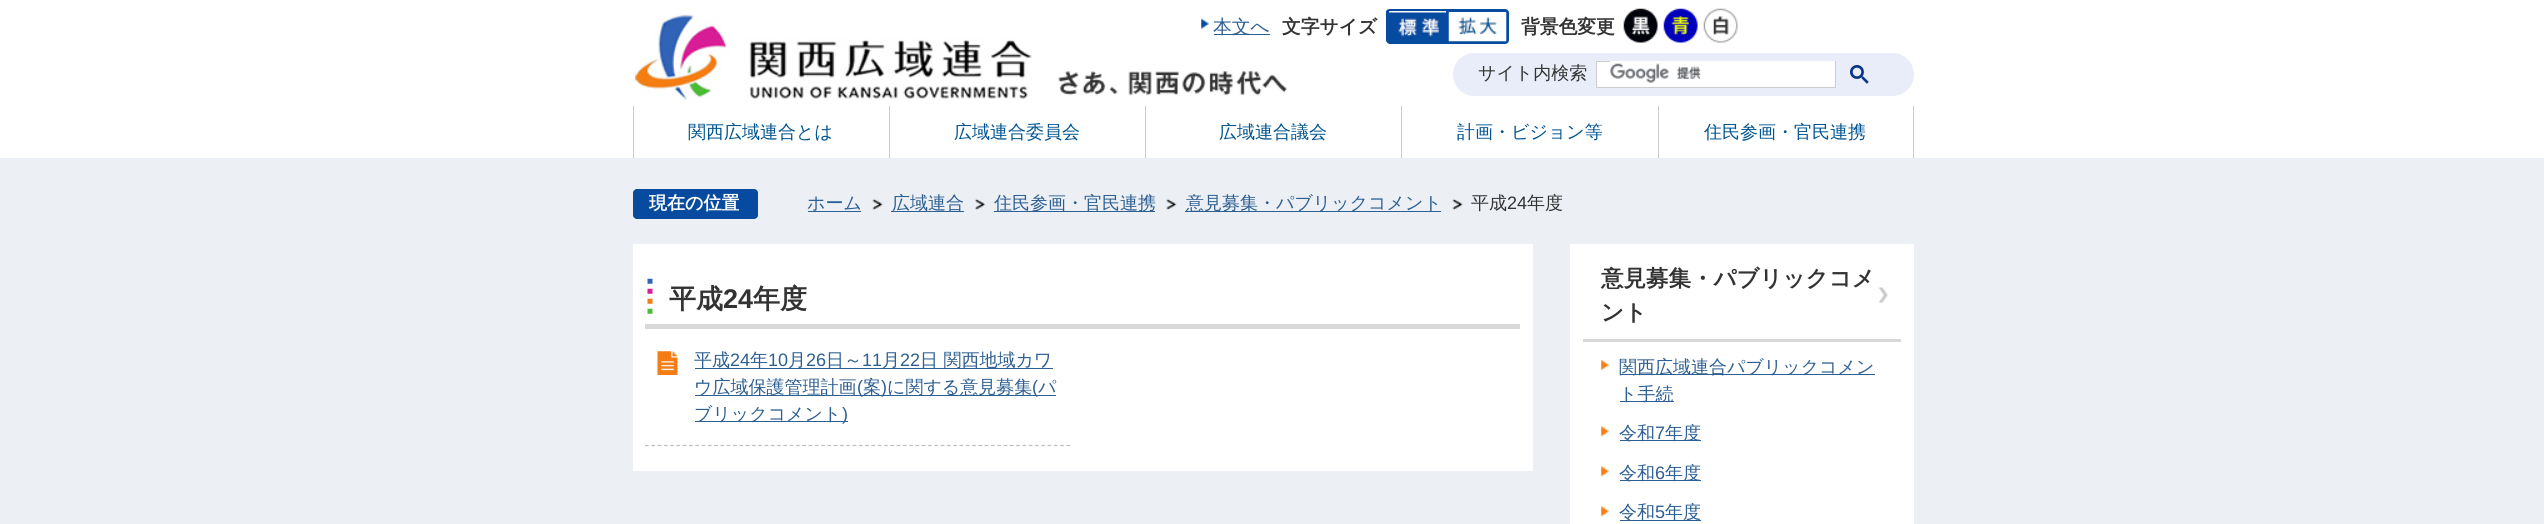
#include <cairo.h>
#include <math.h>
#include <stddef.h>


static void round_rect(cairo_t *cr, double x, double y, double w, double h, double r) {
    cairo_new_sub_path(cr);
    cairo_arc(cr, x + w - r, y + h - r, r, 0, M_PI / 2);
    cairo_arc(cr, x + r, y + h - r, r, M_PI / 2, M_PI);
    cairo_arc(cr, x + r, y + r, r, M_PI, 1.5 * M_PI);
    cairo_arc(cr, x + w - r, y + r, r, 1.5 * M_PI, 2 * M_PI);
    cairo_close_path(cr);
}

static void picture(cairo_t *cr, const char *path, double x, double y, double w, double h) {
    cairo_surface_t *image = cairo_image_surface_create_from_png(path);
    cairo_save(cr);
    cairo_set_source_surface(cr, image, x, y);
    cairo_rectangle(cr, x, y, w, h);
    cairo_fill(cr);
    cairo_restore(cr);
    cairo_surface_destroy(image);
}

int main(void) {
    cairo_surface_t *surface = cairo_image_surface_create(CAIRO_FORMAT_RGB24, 2544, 524);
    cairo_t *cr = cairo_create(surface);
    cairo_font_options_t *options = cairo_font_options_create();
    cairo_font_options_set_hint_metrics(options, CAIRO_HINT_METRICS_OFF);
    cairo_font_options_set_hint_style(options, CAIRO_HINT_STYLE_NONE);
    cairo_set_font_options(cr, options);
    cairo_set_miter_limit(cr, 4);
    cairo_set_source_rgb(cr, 0.925, 0.937, 0.957);
    cairo_paint(cr);
    cairo_set_source_rgb(cr, 1, 1, 1);
    cairo_rectangle(cr, 0, 0, 2544, 158);
    cairo_fill(cr);
    picture(cr, "img1.png", 634, 14, 398, 86);
    picture(cr, "img2.png", 1201, 18, 8, 11);
    cairo_set_source_rgb(cr, 0.176, 0.373, 0.573);
    cairo_rectangle(cr, 1214, 34, 56, 1);
    cairo_fill(cr);
    cairo_select_font_face(cr, "WenQuanYi Zen Hei Medium", CAIRO_FONT_SLANT_NORMAL, CAIRO_FONT_WEIGHT_NORMAL);
    cairo_set_font_size(cr, 18.75);
    cairo_move_to(cr, 1213, 33);
    cairo_show_text(cr, "本文へ");
    cairo_select_font_face(cr, "WenQuanYi Zen Hei", CAIRO_FONT_SLANT_NORMAL, CAIRO_FONT_WEIGHT_BOLD);
    cairo_set_source_rgb(cr, 0.2, 0.2, 0.2);
    cairo_move_to(cr, 1282, 33);
    cairo_show_text(cr, "文字サイズ");
    cairo_set_source_rgb(cr, 0.027, 0.294, 0.627);
    cairo_set_fill_rule(cr, CAIRO_FILL_RULE_EVEN_ODD);
    cairo_new_path(cr);
    cairo_move_to(cr, 1390, 9);
    cairo_line_to(cr, 1446, 9);
    cairo_line_to(cr, 1446, 44);
    cairo_line_to(cr, 1390, 44);
    cairo_curve_to(cr, 1388, 44, 1386, 42, 1386, 40);
    cairo_line_to(cr, 1386, 12);
    cairo_curve_to(cr, 1386, 10, 1388, 9, 1390, 9);
    cairo_close_path(cr);
    cairo_move_to(cr, 1390, 11);
    cairo_line_to(cr, 1446, 11);
    cairo_line_to(cr, 1446, 41);
    cairo_line_to(cr, 1390, 41);
    cairo_curve_to(cr, 1389, 41, 1389, 41, 1389, 40);
    cairo_line_to(cr, 1389, 12);
    cairo_curve_to(cr, 1389, 12, 1389, 11, 1390, 11);
    cairo_close_path(cr);
    cairo_fill(cr);
    picture(cr, "img3.png", 1389, 12, 57, 29);
    cairo_new_path(cr);
    cairo_move_to(cr, 1447.5, 10.5);
    cairo_line_to(cr, 1505, 10.5);
    cairo_curve_to(cr, 1506.5, 10.5, 1507.5, 11.5, 1507.5, 13);
    cairo_line_to(cr, 1507.5, 40);
    cairo_curve_to(cr, 1507.5, 41.5, 1506.5, 42.5, 1505, 42.5);
    cairo_line_to(cr, 1447.5, 42.5);
    cairo_close_path(cr);
    cairo_set_line_width(cr, 3);
    cairo_stroke(cr);
    picture(cr, "img4.png", 1448, 12, 59, 30);
    cairo_set_source_rgb(cr, 0.2, 0.2, 0.2);
    cairo_move_to(cr, 1521, 33);
    cairo_show_text(cr, "背景色変更");
    picture(cr, "img5.png", 1623, 8, 35, 35);
    picture(cr, "img6.png", 1663, 8, 35, 35);
    picture(cr, "img7.png", 1703, 8, 35, 35);
    picture(cr, "img8.png", 1058, 71, 229, 25);
    cairo_set_source_rgb(cr, 0.914, 0.929, 0.973);
    round_rect(cr, 1453, 53, 461, 43, 21.5);
    cairo_fill(cr);
    cairo_select_font_face(cr, "WenQuanYi Zen Hei Medium", CAIRO_FONT_SLANT_NORMAL, CAIRO_FONT_WEIGHT_NORMAL);
    cairo_set_font_size(cr, 18);
    cairo_set_source_rgb(cr, 0.2, 0.2, 0.2);
    cairo_move_to(cr, 1478, 79);
    cairo_show_text(cr, "サイト内検索");
    cairo_set_source_rgb(cr, 1, 1, 1);
    cairo_rectangle(cr, 1596.5, 61.5, 239, 26);
    cairo_fill_preserve(cr);
    cairo_set_source_rgb(cr, 0.8, 0.8, 0.8);
    cairo_set_line_width(cr, 1);
    cairo_stroke(cr);
    cairo_set_source_rgb(cr, 1, 1, 1);
    cairo_rectangle(cr, 1610, 61, 225, 1);
    cairo_fill(cr);
    picture(cr, "img9.png", 1610, 63, 91, 20);
    picture(cr, "img10.png", 1850, 65, 19, 19);
    cairo_set_source_rgb(cr, 0.8, 0.8, 0.8);
    cairo_rectangle(cr, 633, 106, 1, 52);
    cairo_fill(cr);
    cairo_set_source_rgb(cr, 0, 0.329, 0.565);
    cairo_move_to(cr, 688, 138);
    cairo_show_text(cr, "関西広域連合とは");
    cairo_set_source_rgb(cr, 0.8, 0.8, 0.8);
    cairo_rectangle(cr, 889, 106, 1, 52);
    cairo_fill(cr);
    cairo_set_source_rgb(cr, 0, 0.329, 0.565);
    cairo_move_to(cr, 954, 138);
    cairo_show_text(cr, "広域連合委員会");
    cairo_set_source_rgb(cr, 0.8, 0.8, 0.8);
    cairo_rectangle(cr, 1145, 106, 1, 52);
    cairo_fill(cr);
    cairo_set_source_rgb(cr, 0, 0.329, 0.565);
    cairo_move_to(cr, 1219, 138);
    cairo_show_text(cr, "広域連合議会");
    cairo_set_source_rgb(cr, 0.8, 0.8, 0.8);
    cairo_rectangle(cr, 1401, 106, 1, 52);
    cairo_fill(cr);
    cairo_set_source_rgb(cr, 0, 0.329, 0.565);
    cairo_move_to(cr, 1457, 138);
    cairo_show_text(cr, "計画・ビジョン等");
    cairo_set_source_rgb(cr, 0.8, 0.8, 0.8);
    cairo_rectangle(cr, 1913, 106, 1, 52);
    cairo_fill(cr);
    cairo_rectangle(cr, 1658, 106, 1, 52);
    cairo_fill(cr);
    cairo_set_source_rgb(cr, 0, 0.329, 0.565);
    cairo_move_to(cr, 1704, 138);
    cairo_show_text(cr, "住民参画・官民連携");
    cairo_set_source_rgb(cr, 0.024, 0.294, 0.627);
    round_rect(cr, 633, 189, 125, 30, 4);
    cairo_fill(cr);
    cairo_select_font_face(cr, "WenQuanYi Zen Hei", CAIRO_FONT_SLANT_NORMAL, CAIRO_FONT_WEIGHT_BOLD);
    cairo_set_source_rgb(cr, 1, 1, 1);
    cairo_move_to(cr, 649, 209);
    cairo_show_text(cr, "現在の位置");
    cairo_select_font_face(cr, "WenQuanYi Zen Hei Medium", CAIRO_FONT_SLANT_NORMAL, CAIRO_FONT_WEIGHT_NORMAL);
    cairo_set_source_rgb(cr, 0.176, 0.373, 0.573);
    cairo_move_to(cr, 807, 209);
    cairo_show_text(cr, "ホーム");
    cairo_rectangle(cr, 808, 211, 53, 1);
    cairo_fill(cr);
    picture(cr, "img11.png", 872, 198, 11, 12);
    cairo_rectangle(cr, 891, 211, 73, 1);
    cairo_fill(cr);
    cairo_move_to(cr, 892, 209);
    cairo_show_text(cr, "広域連合");
    picture(cr, "img12.png", 975, 198, 10, 12);
    cairo_rectangle(cr, 994, 211, 161, 1);
    cairo_fill(cr);
    cairo_move_to(cr, 994, 209);
    cairo_show_text(cr, "住民参画・官民連携");
    picture(cr, "img13.png", 1166, 198, 11, 12);
    cairo_rectangle(cr, 1185, 211, 256, 1);
    cairo_fill(cr);
    cairo_move_to(cr, 1186, 209);
    cairo_show_text(cr, "意見募集・パブリックコメント");
    picture(cr, "img11.png", 1452, 198, 11, 12);
    cairo_set_source_rgb(cr, 0.2, 0.2, 0.2);
    cairo_move_to(cr, 1471, 209);
    cairo_show_text(cr, "平成");
    cairo_select_font_face(cr, "Liberation Sans", CAIRO_FONT_SLANT_NORMAL, CAIRO_FONT_WEIGHT_NORMAL);
    cairo_move_to(cr, 1507, 209);
    cairo_show_text(cr, "24");
    cairo_select_font_face(cr, "WenQuanYi Zen Hei Medium", CAIRO_FONT_SLANT_NORMAL, CAIRO_FONT_WEIGHT_NORMAL);
    cairo_move_to(cr, 1527, 209);
    cairo_show_text(cr, "年度");
    cairo_set_source_rgb(cr, 1, 1, 1);
    cairo_rectangle(cr, 633, 244, 900, 227);
    cairo_fill(cr);
    picture(cr, "img14.png", 647, 278, 6, 36);
    cairo_set_source_rgb(cr, 0.847, 0.847, 0.847);
    cairo_rectangle(cr, 645, 324, 875, 5);
    cairo_fill(cr);
    cairo_select_font_face(cr, "WenQuanYi Zen Hei", CAIRO_FONT_SLANT_NORMAL, CAIRO_FONT_WEIGHT_BOLD);
    cairo_set_font_size(cr, 27);
    cairo_set_source_rgb(cr, 0.2, 0.2, 0.2);
    cairo_move_to(cr, 669, 308);
    cairo_show_text(cr, "平成");
    cairo_select_font_face(cr, "Liberation Sans", CAIRO_FONT_SLANT_NORMAL, CAIRO_FONT_WEIGHT_BOLD);
    cairo_move_to(cr, 723, 308);
    cairo_show_text(cr, "24");
    cairo_select_font_face(cr, "WenQuanYi Zen Hei", CAIRO_FONT_SLANT_NORMAL, CAIRO_FONT_WEIGHT_BOLD);
    cairo_move_to(cr, 753, 308);
    cairo_show_text(cr, "年度");
    picture(cr, "img15.png", 657, 351, 21, 24);
    cairo_new_path(cr);
    cairo_move_to(cr, 645, 445.5);
    cairo_line_to(cr, 1070, 445.5);
    cairo_set_source_rgb(cr, 0.749, 0.749, 0.749);
    cairo_set_line_width(cr, 1.2);
    cairo_set_dash(cr, (double[]){3.75, 2.54}, 2, 0);
    cairo_stroke(cr);
    cairo_set_source_rgb(cr, 0.176, 0.373, 0.573);
    cairo_rectangle(cr, 695, 368, 358, 1);
    cairo_fill(cr);
    cairo_select_font_face(cr, "WenQuanYi Zen Hei Medium", CAIRO_FONT_SLANT_NORMAL, CAIRO_FONT_WEIGHT_NORMAL);
    cairo_set_font_size(cr, 18);
    cairo_move_to(cr, 694, 366);
    cairo_show_text(cr, "平成");
    cairo_select_font_face(cr, "Liberation Sans", CAIRO_FONT_SLANT_NORMAL, CAIRO_FONT_WEIGHT_NORMAL);
    cairo_move_to(cr, 730, 366);
    cairo_show_text(cr, "24");
    cairo_select_font_face(cr, "WenQuanYi Zen Hei Medium", CAIRO_FONT_SLANT_NORMAL, CAIRO_FONT_WEIGHT_NORMAL);
    cairo_move_to(cr, 750, 366);
    cairo_show_text(cr, "年");
    cairo_select_font_face(cr, "Liberation Sans", CAIRO_FONT_SLANT_NORMAL, CAIRO_FONT_WEIGHT_NORMAL);
    cairo_move_to(cr, 768, 366);
    cairo_show_text(cr, "10");
    cairo_select_font_face(cr, "WenQuanYi Zen Hei Medium", CAIRO_FONT_SLANT_NORMAL, CAIRO_FONT_WEIGHT_NORMAL);
    cairo_move_to(cr, 788, 366);
    cairo_show_text(cr, "月");
    cairo_select_font_face(cr, "Liberation Sans", CAIRO_FONT_SLANT_NORMAL, CAIRO_FONT_WEIGHT_NORMAL);
    cairo_move_to(cr, 806, 366);
    cairo_show_text(cr, "26");
    cairo_select_font_face(cr, "WenQuanYi Zen Hei Medium", CAIRO_FONT_SLANT_NORMAL, CAIRO_FONT_WEIGHT_NORMAL);
    cairo_move_to(cr, 826, 366);
    cairo_show_text(cr, "日～");
    cairo_select_font_face(cr, "Liberation Sans", CAIRO_FONT_SLANT_NORMAL, CAIRO_FONT_WEIGHT_NORMAL);
    cairo_move_to(cr, 862, 366);
    cairo_show_text(cr, "11");
    cairo_select_font_face(cr, "WenQuanYi Zen Hei Medium", CAIRO_FONT_SLANT_NORMAL, CAIRO_FONT_WEIGHT_NORMAL);
    cairo_move_to(cr, 882, 366);
    cairo_show_text(cr, "月");
    cairo_select_font_face(cr, "Liberation Sans", CAIRO_FONT_SLANT_NORMAL, CAIRO_FONT_WEIGHT_NORMAL);
    cairo_move_to(cr, 900, 366);
    cairo_show_text(cr, "22");
    cairo_select_font_face(cr, "WenQuanYi Zen Hei Medium", CAIRO_FONT_SLANT_NORMAL, CAIRO_FONT_WEIGHT_NORMAL);
    cairo_move_to(cr, 920, 366);
    cairo_show_text(cr, "日 関西地域カワ");
    cairo_rectangle(cr, 695, 395, 361, 1);
    cairo_fill(cr);
    cairo_move_to(cr, 694, 393);
    cairo_show_text(cr, "ウ広域保護管理計画");
    cairo_select_font_face(cr, "Liberation Sans", CAIRO_FONT_SLANT_NORMAL, CAIRO_FONT_WEIGHT_NORMAL);
    cairo_move_to(cr, 857, 393);
    cairo_show_text(cr, "(");
    cairo_select_font_face(cr, "WenQuanYi Zen Hei Medium", CAIRO_FONT_SLANT_NORMAL, CAIRO_FONT_WEIGHT_NORMAL);
    cairo_move_to(cr, 863, 393);
    cairo_show_text(cr, "案");
    cairo_select_font_face(cr, "Liberation Sans", CAIRO_FONT_SLANT_NORMAL, CAIRO_FONT_WEIGHT_NORMAL);
    cairo_move_to(cr, 881, 393);
    cairo_show_text(cr, ")");
    cairo_select_font_face(cr, "WenQuanYi Zen Hei Medium", CAIRO_FONT_SLANT_NORMAL, CAIRO_FONT_WEIGHT_NORMAL);
    cairo_move_to(cr, 887, 393);
    cairo_show_text(cr, "に関する意見募集");
    cairo_select_font_face(cr, "Liberation Sans", CAIRO_FONT_SLANT_NORMAL, CAIRO_FONT_WEIGHT_NORMAL);
    cairo_move_to(cr, 1032, 393);
    cairo_show_text(cr, "(");
    cairo_select_font_face(cr, "WenQuanYi Zen Hei Medium", CAIRO_FONT_SLANT_NORMAL, CAIRO_FONT_WEIGHT_NORMAL);
    cairo_move_to(cr, 1038, 393);
    cairo_show_text(cr, "パ");
    cairo_rectangle(cr, 695, 421, 153, 1);
    cairo_fill(cr);
    cairo_move_to(cr, 694, 420);
    cairo_show_text(cr, "ブリックコメント");
    cairo_select_font_face(cr, "Liberation Sans", CAIRO_FONT_SLANT_NORMAL, CAIRO_FONT_WEIGHT_NORMAL);
    cairo_move_to(cr, 842, 420);
    cairo_show_text(cr, ")");
    cairo_set_source_rgb(cr, 1, 1, 1);
    cairo_rectangle(cr, 1570, 244, 344, 280);
    cairo_fill(cr);
    picture(cr, "img16.png", 1878, 287, 10, 16);
    cairo_set_source_rgb(cr, 0.847, 0.847, 0.847);
    cairo_rectangle(cr, 1583, 339, 318, 3);
    cairo_fill(cr);
    cairo_select_font_face(cr, "WenQuanYi Zen Hei", CAIRO_FONT_SLANT_NORMAL, CAIRO_FONT_WEIGHT_BOLD);
    cairo_set_font_size(cr, 22.5);
    cairo_set_source_rgb(cr, 0.2, 0.2, 0.2);
    cairo_move_to(cr, 1601, 286);
    cairo_show_text(cr, "意見募集・パブリックコメ");
    cairo_move_to(cr, 1601, 320);
    cairo_show_text(cr, "ント");
    picture(cr, "img17.png", 1601, 360, 8, 10);
    cairo_set_source_rgb(cr, 0.176, 0.373, 0.573);
    cairo_rectangle(cr, 1620, 374, 255, 1);
    cairo_fill(cr);
    cairo_select_font_face(cr, "WenQuanYi Zen Hei Medium", CAIRO_FONT_SLANT_NORMAL, CAIRO_FONT_WEIGHT_NORMAL);
    cairo_set_font_size(cr, 18);
    cairo_move_to(cr, 1619, 373);
    cairo_show_text(cr, "関西広域連合パブリックコメン");
    cairo_rectangle(cr, 1620, 401, 54, 1);
    cairo_fill(cr);
    cairo_move_to(cr, 1619, 400);
    cairo_show_text(cr, "ト手続");
    picture(cr, "img18.png", 1601, 426, 8, 11);
    cairo_rectangle(cr, 1620, 440, 81, 1);
    cairo_fill(cr);
    cairo_move_to(cr, 1619, 439);
    cairo_show_text(cr, "令和");
    cairo_select_font_face(cr, "Liberation Sans", CAIRO_FONT_SLANT_NORMAL, CAIRO_FONT_WEIGHT_NORMAL);
    cairo_move_to(cr, 1655, 439);
    cairo_show_text(cr, "7");
    cairo_select_font_face(cr, "WenQuanYi Zen Hei Medium", CAIRO_FONT_SLANT_NORMAL, CAIRO_FONT_WEIGHT_NORMAL);
    cairo_move_to(cr, 1665, 439);
    cairo_show_text(cr, "年度");
    picture(cr, "img18.png", 1601, 466, 8, 11);
    cairo_rectangle(cr, 1620, 480, 81, 1);
    cairo_fill(cr);
    cairo_move_to(cr, 1619, 479);
    cairo_show_text(cr, "令和");
    cairo_select_font_face(cr, "Liberation Sans", CAIRO_FONT_SLANT_NORMAL, CAIRO_FONT_WEIGHT_NORMAL);
    cairo_move_to(cr, 1655, 479);
    cairo_show_text(cr, "6");
    cairo_select_font_face(cr, "WenQuanYi Zen Hei Medium", CAIRO_FONT_SLANT_NORMAL, CAIRO_FONT_WEIGHT_NORMAL);
    cairo_move_to(cr, 1665, 479);
    cairo_show_text(cr, "年度");
    picture(cr, "img18.png", 1601, 506, 8, 11);
    cairo_rectangle(cr, 1620, 520, 81, 1);
    cairo_fill(cr);
    cairo_move_to(cr, 1619, 518);
    cairo_show_text(cr, "令和");
    cairo_select_font_face(cr, "Liberation Sans", CAIRO_FONT_SLANT_NORMAL, CAIRO_FONT_WEIGHT_NORMAL);
    cairo_move_to(cr, 1655, 518);
    cairo_show_text(cr, "5");
    cairo_select_font_face(cr, "WenQuanYi Zen Hei Medium", CAIRO_FONT_SLANT_NORMAL, CAIRO_FONT_WEIGHT_NORMAL);
    cairo_move_to(cr, 1665, 518);
    cairo_show_text(cr, "年度");
    cairo_surface_write_to_png(surface, "page.png");
    cairo_font_options_destroy(options);
    cairo_destroy(cr);
    cairo_surface_destroy(surface);
    return 0;
}
